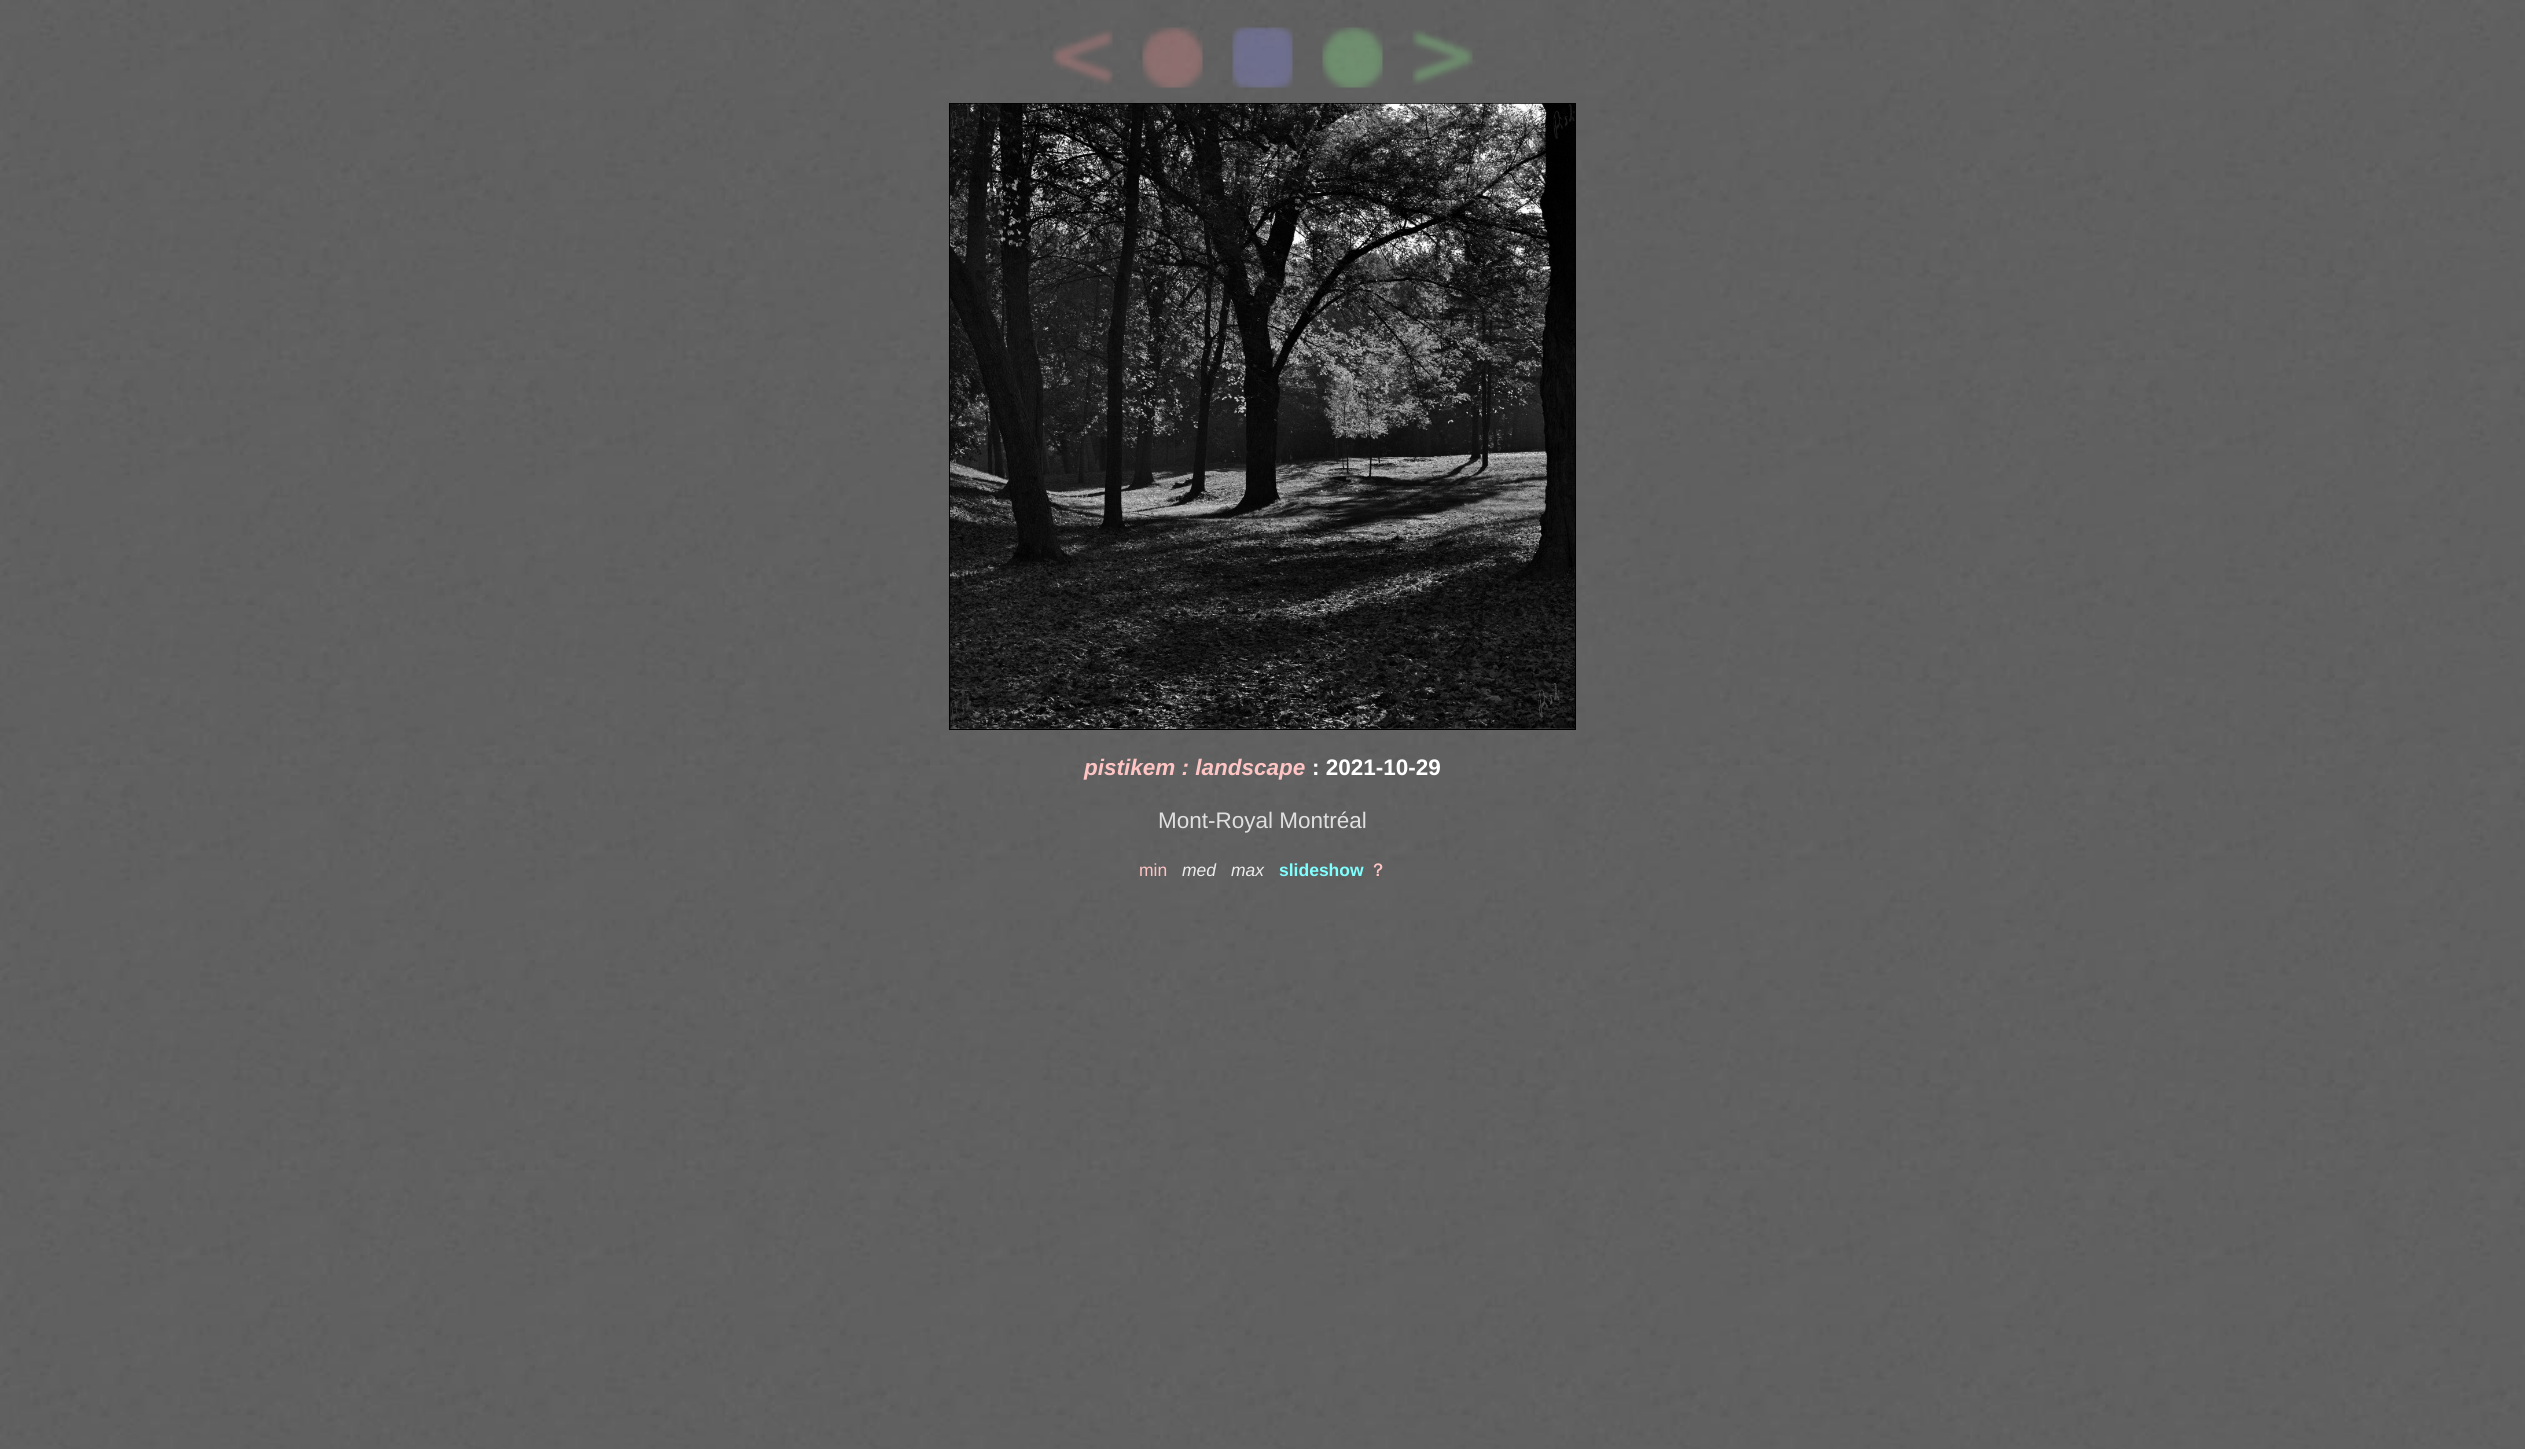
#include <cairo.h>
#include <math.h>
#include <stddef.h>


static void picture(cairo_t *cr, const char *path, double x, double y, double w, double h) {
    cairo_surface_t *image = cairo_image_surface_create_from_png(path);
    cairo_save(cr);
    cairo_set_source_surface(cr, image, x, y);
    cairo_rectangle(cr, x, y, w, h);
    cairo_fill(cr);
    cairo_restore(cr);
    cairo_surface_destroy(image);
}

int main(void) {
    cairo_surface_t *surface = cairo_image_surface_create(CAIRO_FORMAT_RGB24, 2525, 1449);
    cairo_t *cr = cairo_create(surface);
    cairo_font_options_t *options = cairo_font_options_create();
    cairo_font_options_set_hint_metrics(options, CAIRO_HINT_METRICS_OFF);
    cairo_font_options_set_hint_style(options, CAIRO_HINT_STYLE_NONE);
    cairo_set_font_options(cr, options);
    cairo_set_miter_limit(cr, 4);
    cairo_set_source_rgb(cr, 1, 1, 1);
    cairo_paint(cr);
    picture(cr, "img1.png", 0, 0, 2525, 1449);
    picture(cr, "img2.png", 1052, 29, 61, 56);
    picture(cr, "img3.png", 1142, 27, 61, 61);
    picture(cr, "img4.png", 1232, 27, 61, 61);
    picture(cr, "img5.png", 1322, 27, 61, 61);
    picture(cr, "img6.png", 1412, 29, 61, 56);
    cairo_rectangle(cr, 949.5, 103.5, 626, 626);
    cairo_set_source_rgb(cr, 0, 0, 0);
    cairo_set_line_width(cr, 1);
    cairo_stroke(cr);
    picture(cr, "img7.png", 950, 103, 625, 626);
    cairo_select_font_face(cr, "Liberation Sans", CAIRO_FONT_SLANT_ITALIC, CAIRO_FONT_WEIGHT_BOLD);
    cairo_set_font_size(cr, 22.5);
    cairo_set_source_rgb(cr, 1, 0.769, 0.769);
    cairo_move_to(cr, 1084, 775);
    cairo_show_text(cr, "pistikem : landscape");
    cairo_select_font_face(cr, "Liberation Sans", CAIRO_FONT_SLANT_NORMAL, CAIRO_FONT_WEIGHT_BOLD);
    cairo_set_source_rgb(cr, 1, 1, 1);
    cairo_move_to(cr, 1312, 775);
    cairo_show_text(cr, ": 2021-10-29");
    cairo_select_font_face(cr, "Liberation Sans", CAIRO_FONT_SLANT_NORMAL, CAIRO_FONT_WEIGHT_NORMAL);
    cairo_set_source_rgb(cr, 0.878, 0.878, 0.878);
    cairo_move_to(cr, 1158, 828);
    cairo_show_text(cr, "Mont-Royal Montréal");
    cairo_set_font_size(cr, 17.5);
    cairo_set_source_rgb(cr, 1, 0.769, 0.769);
    cairo_move_to(cr, 1139, 876);
    cairo_show_text(cr, "min");
    cairo_select_font_face(cr, "Liberation Sans", CAIRO_FONT_SLANT_ITALIC, CAIRO_FONT_WEIGHT_NORMAL);
    cairo_set_source_rgb(cr, 0.925, 0.925, 0.925);
    cairo_move_to(cr, 1182, 876);
    cairo_show_text(cr, "med");
    cairo_move_to(cr, 1231, 876);
    cairo_show_text(cr, "max");
    cairo_select_font_face(cr, "Liberation Sans", CAIRO_FONT_SLANT_NORMAL, CAIRO_FONT_WEIGHT_BOLD);
    cairo_set_source_rgb(cr, 0.502, 1, 1);
    cairo_move_to(cr, 1279, 876);
    cairo_show_text(cr, "slideshow");
    cairo_select_font_face(cr, "WenQuanYi Zen Hei", CAIRO_FONT_SLANT_NORMAL, CAIRO_FONT_WEIGHT_BOLD);
    cairo_set_source_rgb(cr, 1, 0.769, 0.769);
    cairo_move_to(cr, 1369, 876);
    cairo_show_text(cr, "？");
    cairo_surface_write_to_png(surface, "page.png");
    cairo_font_options_destroy(options);
    cairo_destroy(cr);
    cairo_surface_destroy(surface);
    return 0;
}
